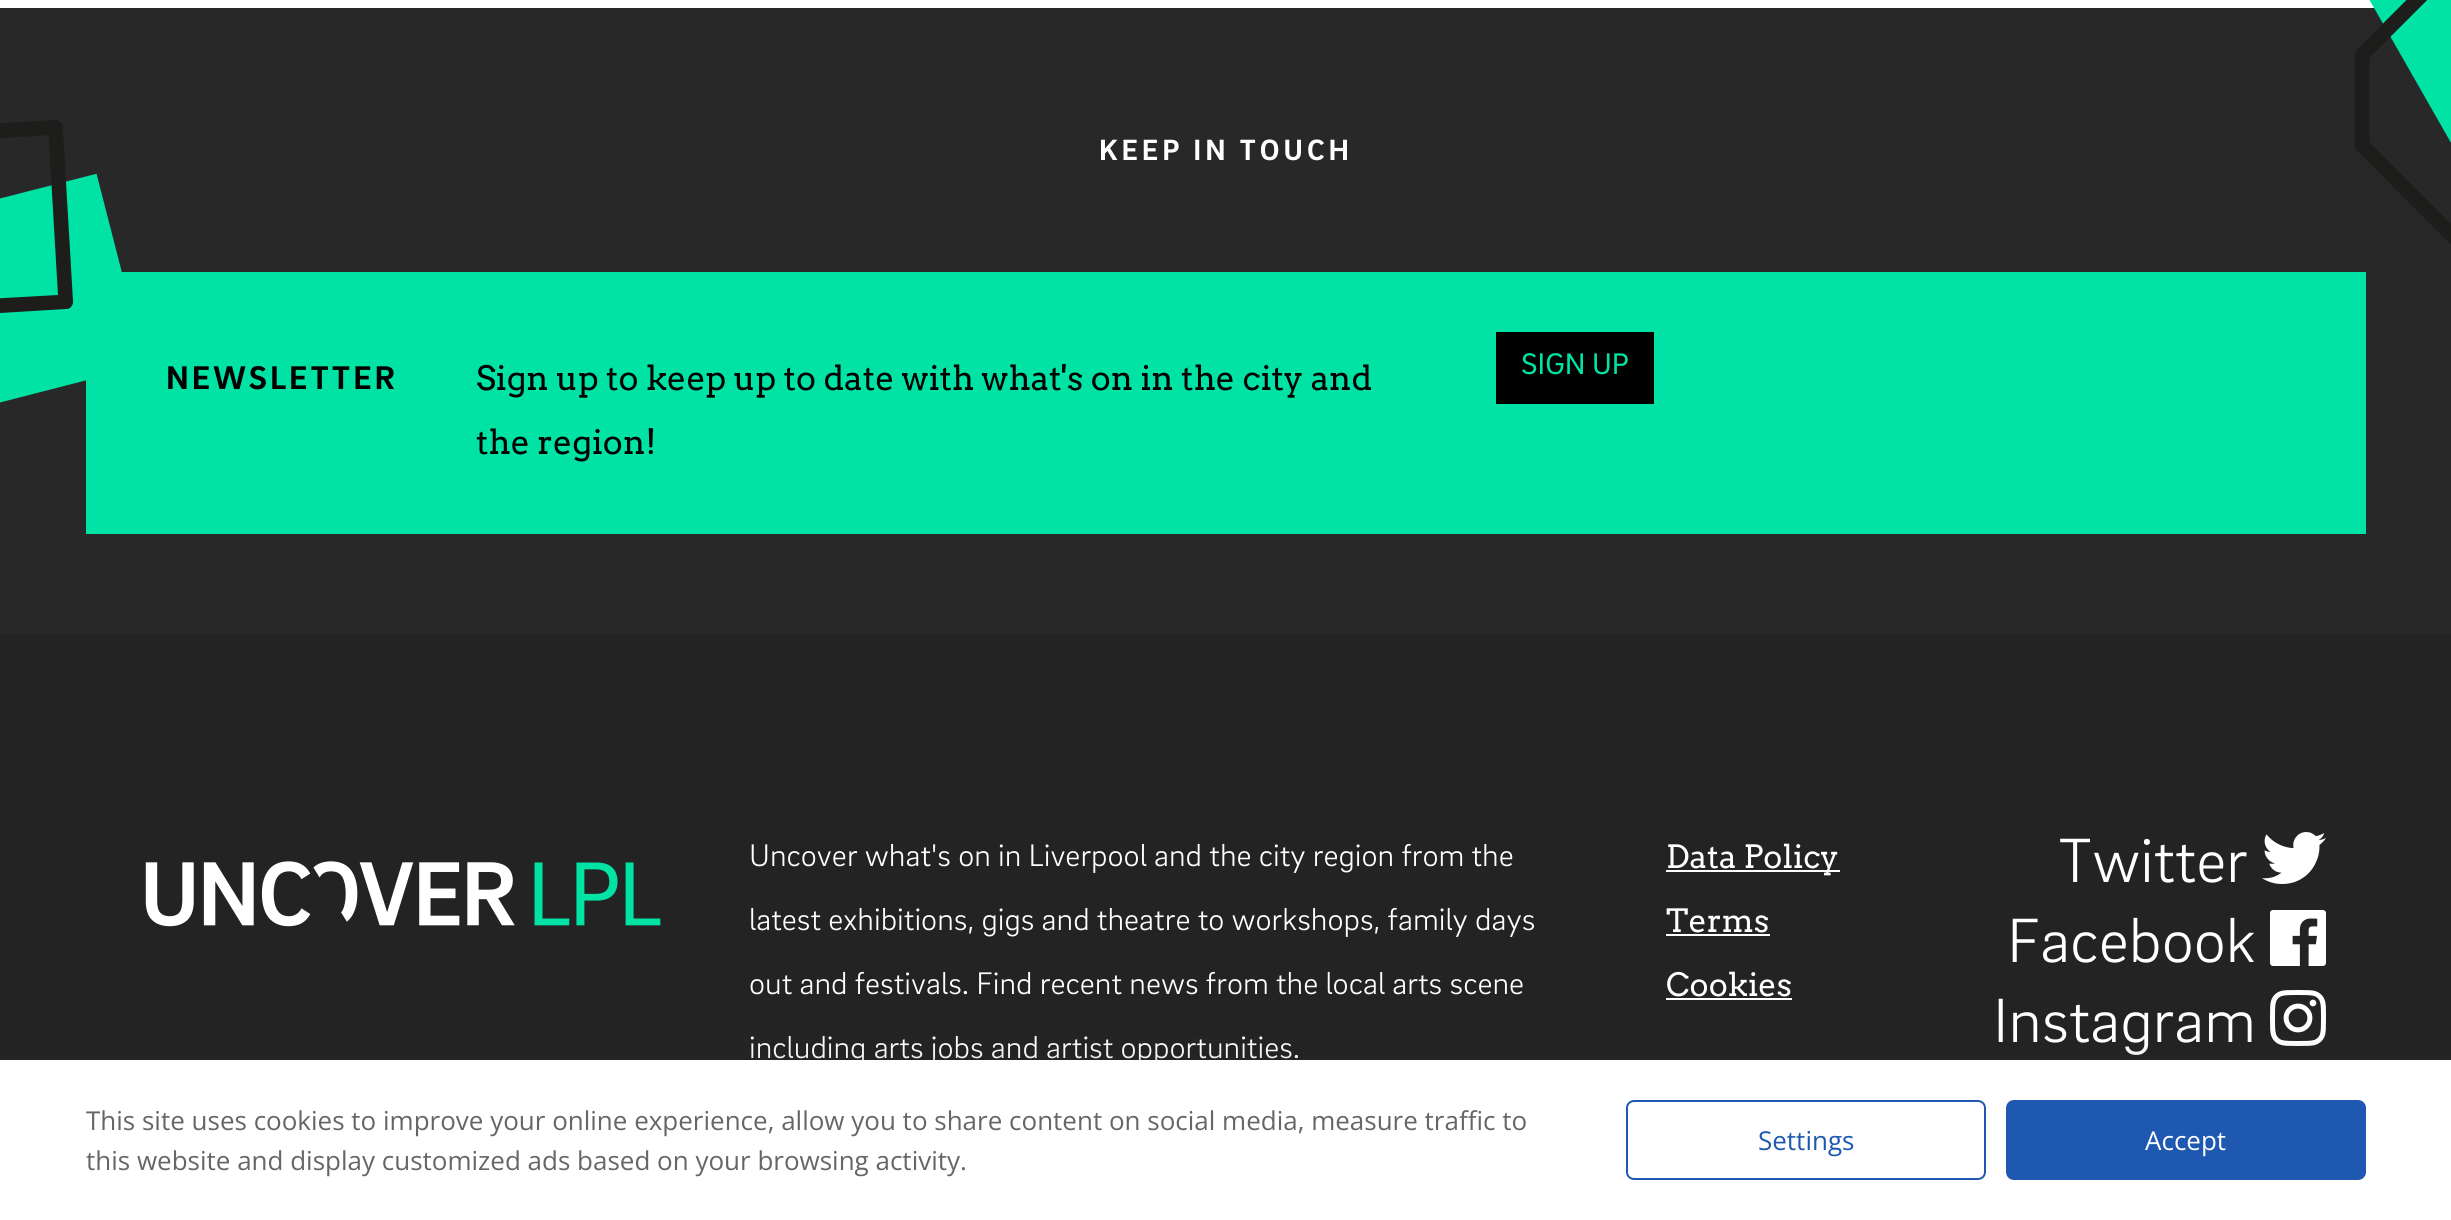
#include <cairo.h>
#include <math.h>
#include <stddef.h>


static void spaced_text(cairo_t *cr, double x, double y, const char *s, double letter, double word) {
    cairo_move_to(cr, x, y);
    while (*s) {
        char ch[5] = {0};
        int n = 0;
        do ch[n++] = *s++; while ((*s & 0xC0) == 0x80);
        cairo_show_text(cr, ch);
        cairo_rel_move_to(cr, letter + word * (*ch == ' '), 0);
    }
}

static void round_rect(cairo_t *cr, double x, double y, double w, double h, double r) {
    cairo_new_sub_path(cr);
    cairo_arc(cr, x + w - r, y + h - r, r, 0, M_PI / 2);
    cairo_arc(cr, x + r, y + h - r, r, M_PI / 2, M_PI);
    cairo_arc(cr, x + r, y + r, r, M_PI, 1.5 * M_PI);
    cairo_arc(cr, x + w - r, y + r, r, 1.5 * M_PI, 2 * M_PI);
    cairo_close_path(cr);
}

static void shadow(cairo_t *cr, double x, double y, double w, double h, double r, double blur, double alpha) {
    cairo_push_group_with_content(cr, CAIRO_CONTENT_ALPHA);
    cairo_set_operator(cr, CAIRO_OPERATOR_SOURCE);
    for (int i = 15; i >= -15 && fmin(w, h) + blur * i / 3 > 0; i -= 2) {
        double e = blur * i / 6;
        cairo_set_source_rgba(cr, 0, 0, 0, alpha * erfc((i - 1) / 8.5) / 2);
        round_rect(cr, x - e, y - e, w + 2 * e, h + 2 * e, fmax(0, fmin(r + e + blur * .6, fmin(w, h) / 2 + e)));
        cairo_fill(cr);
    }
    cairo_pattern_t *soft = cairo_pop_group(cr);
    cairo_mask(cr, soft);
    cairo_pattern_destroy(soft);
}

static void picture(cairo_t *cr, const char *path, double x, double y, double w, double h) {
    cairo_surface_t *image = cairo_image_surface_create_from_png(path);
    cairo_save(cr);
    cairo_set_source_surface(cr, image, x, y);
    cairo_rectangle(cr, x, y, w, h);
    cairo_fill(cr);
    cairo_restore(cr);
    cairo_surface_destroy(image);
}

int main(void) {
    cairo_surface_t *surface = cairo_image_surface_create(CAIRO_FORMAT_RGB24, 2451, 1220);
    cairo_t *cr = cairo_create(surface);
    cairo_font_options_t *options = cairo_font_options_create();
    cairo_font_options_set_hint_metrics(options, CAIRO_HINT_METRICS_OFF);
    cairo_font_options_set_hint_style(options, CAIRO_HINT_STYLE_NONE);
    cairo_set_font_options(cr, options);
    cairo_set_miter_limit(cr, 4);
    cairo_set_source_rgb(cr, 1, 1, 1);
    cairo_paint(cr);
    cairo_set_source_rgb(cr, 0.161, 0.157, 0.157);
    cairo_rectangle(cr, 0, 8, 2451, 626);
    cairo_fill(cr);
    picture(cr, "img1.png", 0, 0, 2451, 403);
    cairo_select_font_face(cr, "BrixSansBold", CAIRO_FONT_SLANT_NORMAL, CAIRO_FONT_WEIGHT_NORMAL);
    cairo_set_font_size(cr, 30);
    cairo_set_source_rgb(cr, 1, 1, 1);
    spaced_text(cr, 1099, 160, "KEEP IN TOUCH", 4, 0);
    cairo_set_source_rgb(cr, 0, 0.89, 0.647);
    cairo_rectangle(cr, 86, 272, 2280, 262);
    cairo_fill(cr);
    cairo_set_font_size(cr, 33.6);
    cairo_set_source_rgb(cr, 0, 0, 0);
    spaced_text(cr, 166, 389, "NEWSLETTER", 3, 0);
    cairo_select_font_face(cr, "Arvo", CAIRO_FONT_SLANT_NORMAL, CAIRO_FONT_WEIGHT_NORMAL);
    cairo_move_to(cr, 476, 390);
    cairo_show_text(cr, "Sign up to keep up to date with what's on in the city and");
    cairo_move_to(cr, 476, 454);
    cairo_show_text(cr, "the region!");
    cairo_rectangle(cr, 1496, 332, 158, 72);
    cairo_fill(cr);
    cairo_select_font_face(cr, "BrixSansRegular", CAIRO_FONT_SLANT_NORMAL, CAIRO_FONT_WEIGHT_NORMAL);
    cairo_set_font_size(cr, 30.5);
    cairo_set_source_rgb(cr, 0, 0.89, 0.647);
    cairo_move_to(cr, 1521, 374);
    cairo_show_text(cr, "SIGN UP");
    cairo_set_source_rgb(cr, 0.137, 0.137, 0.137);
    cairo_rectangle(cr, 0, 634, 2451, 426);
    cairo_fill(cr);
    picture(cr, "img2.png", 145, 861, 516, 66);
    cairo_select_font_face(cr, "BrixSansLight", CAIRO_FONT_SLANT_NORMAL, CAIRO_FONT_WEIGHT_NORMAL);
    cairo_set_font_size(cr, 32);
    cairo_set_source_rgb(cr, 1, 1, 1);
    cairo_move_to(cr, 749, 866);
    cairo_show_text(cr, "Uncover what's on in Liverpool and the city region from the");
    cairo_move_to(cr, 749, 930);
    cairo_show_text(cr, "latest exhibitions, gigs and theatre to workshops, family days");
    cairo_move_to(cr, 749, 994);
    cairo_show_text(cr, "out and festivals. Find recent news from the local arts scene");
    cairo_move_to(cr, 749, 1058);
    cairo_show_text(cr, "including arts jobs and artist opportunities.");
    cairo_rectangle(cr, 1666, 870, 174, 2);
    cairo_fill(cr);
    cairo_select_font_face(cr, "Arvo", CAIRO_FONT_SLANT_NORMAL, CAIRO_FONT_WEIGHT_NORMAL);
    cairo_move_to(cr, 1666, 868);
    cairo_show_text(cr, "Data Policy");
    cairo_move_to(cr, 1666, 932);
    cairo_show_text(cr, "Terms");
    cairo_rectangle(cr, 1666, 934, 104, 2);
    cairo_fill(cr);
    cairo_move_to(cr, 1666, 996);
    cairo_show_text(cr, "Cookies");
    cairo_rectangle(cr, 1666, 998, 126, 2);
    cairo_fill(cr);
    cairo_select_font_face(cr, "BrixSansLight", CAIRO_FONT_SLANT_NORMAL, CAIRO_FONT_WEIGHT_NORMAL);
    cairo_set_font_size(cr, 64);
    cairo_move_to(cr, 2058, 882);
    cairo_show_text(cr, "Twitter");
    picture(cr, "img3.png", 2262, 832, 64, 52);
    cairo_move_to(cr, 2007, 962);
    cairo_show_text(cr, "Facebook");
    picture(cr, "img4.png", 2270, 910, 56, 56);
    cairo_move_to(cr, 1993, 1042);
    cairo_show_text(cr, "Instagram");
    picture(cr, "img5.png", 2270, 990, 56, 56);
    cairo_set_source_rgb(cr, 0.141, 0.184, 0.259);
    shadow(cr, -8, 1072, 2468, 136, 0, 20, 0.31);
    cairo_rectangle(cr, -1, 1059, 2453, 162);
    cairo_set_source_rgba(cr, 0.141, 0.184, 0.259, 0.08);
    cairo_stroke(cr);
    cairo_set_source_rgb(cr, 1, 1, 1);
    cairo_rectangle(cr, 0, 1060, 2451, 160);
    cairo_fill(cr);
    cairo_select_font_face(cr, "Open Sans", CAIRO_FONT_SLANT_NORMAL, CAIRO_FONT_WEIGHT_NORMAL);
    cairo_set_font_size(cr, 26);
    cairo_set_source_rgb(cr, 0.4, 0.4, 0.4);
    cairo_move_to(cr, 86, 1130);
    cairo_show_text(cr, "This site uses cookies to improve your online experience, allow you to share content on social media, measure traffic to");
    cairo_move_to(cr, 86, 1170);
    cairo_show_text(cr, "this website and display customized ads based on your browsing activity.");
    round_rect(cr, 1627, 1101, 358, 78, 7);
    cairo_set_source_rgb(cr, 0.118, 0.345, 0.694);
    cairo_stroke(cr);
    cairo_move_to(cr, 1758, 1150);
    cairo_show_text(cr, "Settings");
    round_rect(cr, 2007, 1101, 358, 78, 7);
    cairo_fill_preserve(cr);
    cairo_stroke(cr);
    cairo_set_source_rgb(cr, 1, 1, 1);
    cairo_move_to(cr, 2145, 1150);
    cairo_show_text(cr, "Accept");
    cairo_surface_write_to_png(surface, "page.png");
    cairo_font_options_destroy(options);
    cairo_destroy(cr);
    cairo_surface_destroy(surface);
    return 0;
}
